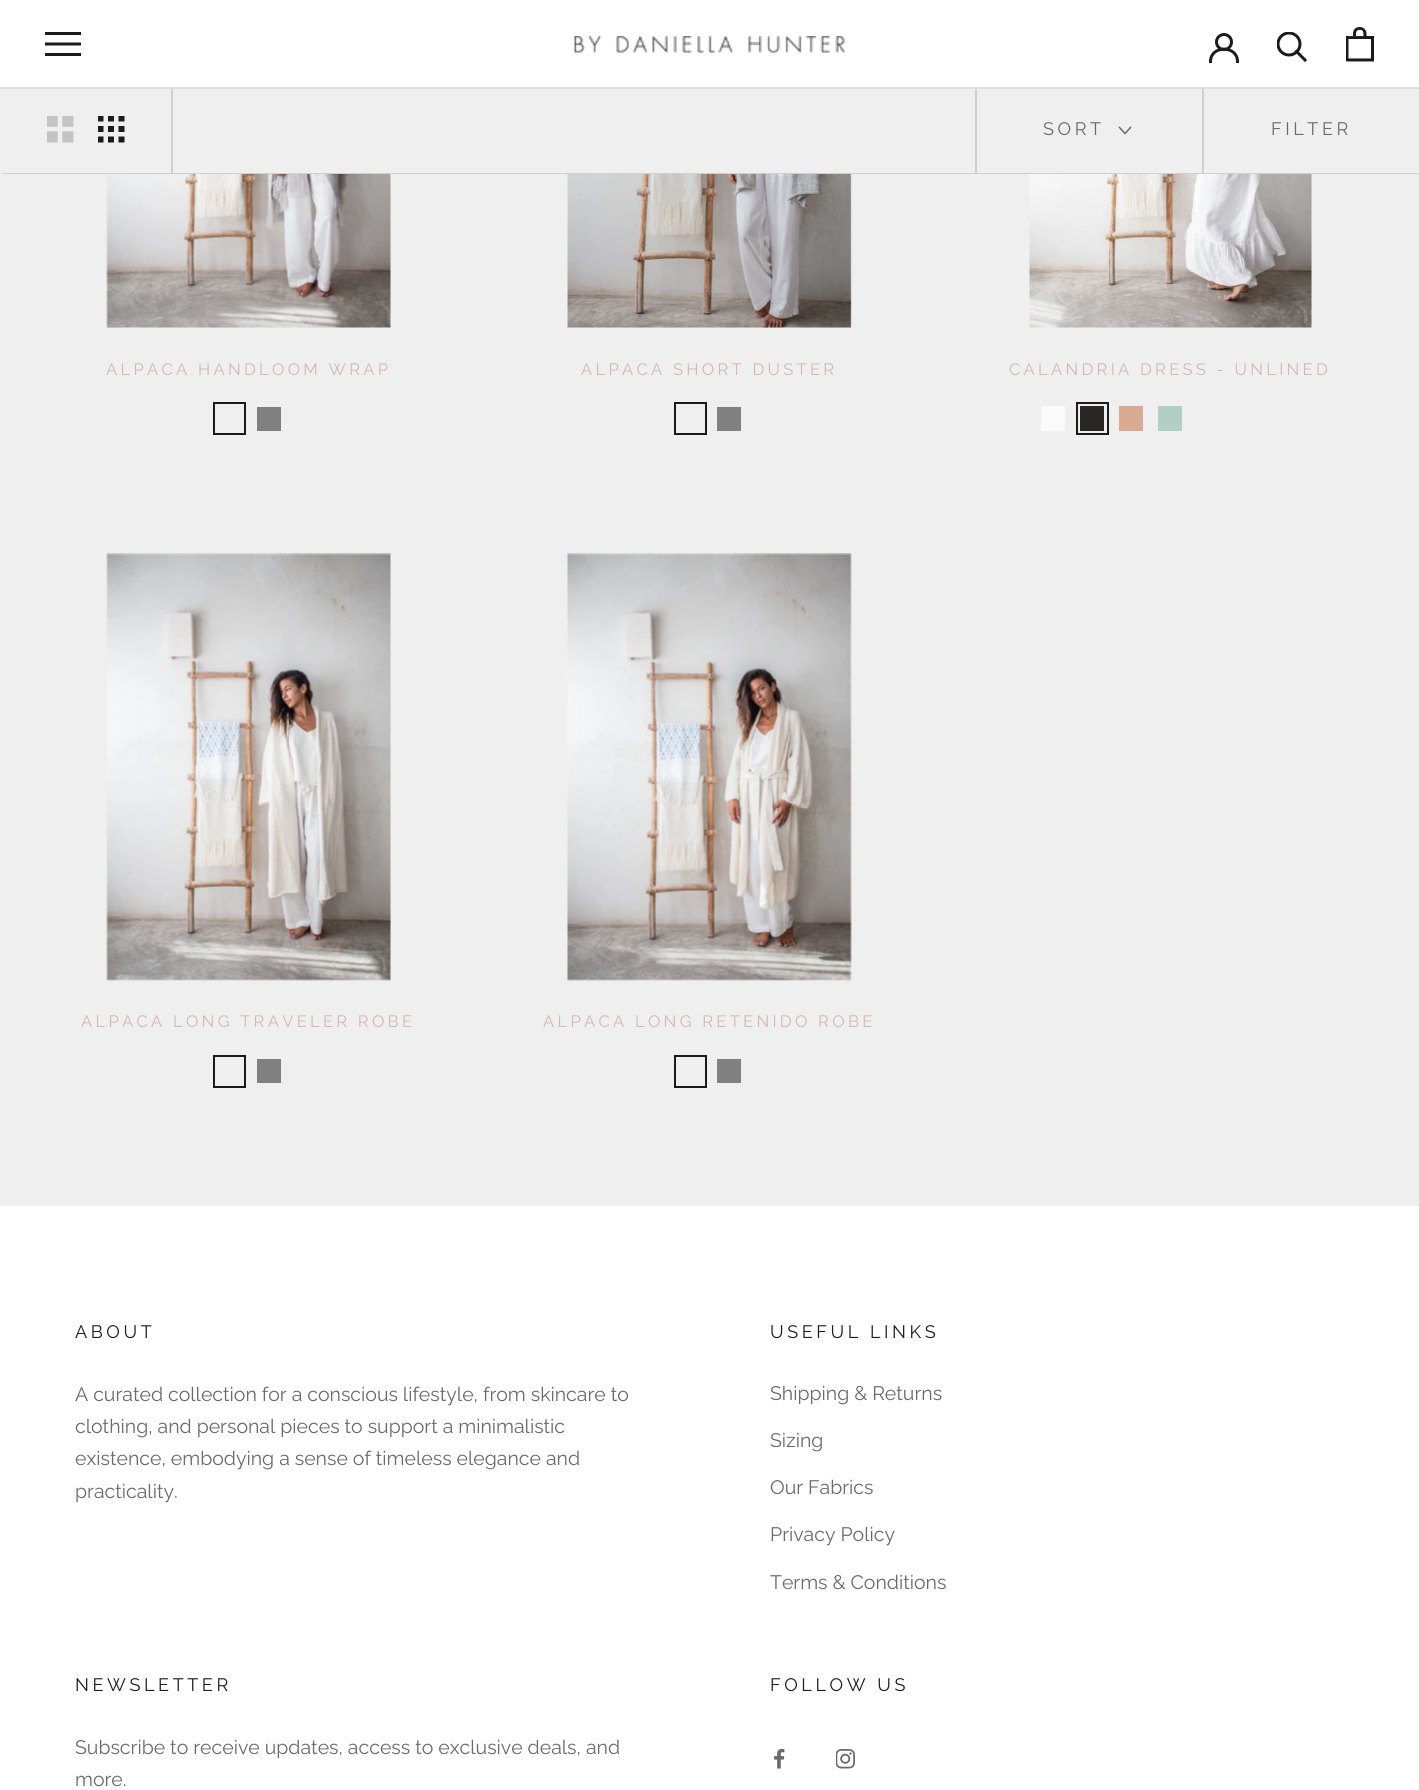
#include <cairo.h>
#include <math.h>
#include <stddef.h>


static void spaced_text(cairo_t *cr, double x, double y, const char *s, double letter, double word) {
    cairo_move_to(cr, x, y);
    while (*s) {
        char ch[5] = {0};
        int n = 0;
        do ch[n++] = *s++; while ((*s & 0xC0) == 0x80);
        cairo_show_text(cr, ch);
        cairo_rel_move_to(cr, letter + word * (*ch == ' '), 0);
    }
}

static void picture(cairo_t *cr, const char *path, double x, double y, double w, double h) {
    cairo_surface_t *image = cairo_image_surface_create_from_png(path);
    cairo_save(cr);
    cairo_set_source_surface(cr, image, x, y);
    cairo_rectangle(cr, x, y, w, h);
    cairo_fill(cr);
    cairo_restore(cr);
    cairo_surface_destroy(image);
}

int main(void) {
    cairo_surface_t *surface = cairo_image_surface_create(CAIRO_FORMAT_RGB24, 1419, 1790);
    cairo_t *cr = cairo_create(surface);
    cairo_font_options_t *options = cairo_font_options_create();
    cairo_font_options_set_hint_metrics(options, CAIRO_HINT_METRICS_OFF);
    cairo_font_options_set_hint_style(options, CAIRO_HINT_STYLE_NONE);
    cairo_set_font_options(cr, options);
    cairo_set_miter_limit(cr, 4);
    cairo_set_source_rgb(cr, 0.937, 0.937, 0.937);
    cairo_paint(cr);
    cairo_set_source_rgb(cr, 1, 1, 1);
    cairo_rectangle(cr, 0, 0, 1419, 87);
    cairo_fill(cr);
    cairo_set_source_rgb(cr, 0.867, 0.867, 0.867);
    cairo_rectangle(cr, 0, 87, 1419, 2);
    cairo_fill(cr);
    cairo_set_source_rgb(cr, 0.11, 0.106, 0.106);
    cairo_new_path(cr);
    cairo_move_to(cr, 45, 56);
    cairo_line_to(cr, 45, 53);
    cairo_line_to(cr, 81, 53);
    cairo_line_to(cr, 81, 56);
    cairo_close_path(cr);
    cairo_move_to(cr, 45, 42.5);
    cairo_line_to(cr, 81, 42.5);
    cairo_line_to(cr, 81, 45.5);
    cairo_line_to(cr, 45, 45.5);
    cairo_close_path(cr);
    cairo_move_to(cr, 45, 32);
    cairo_line_to(cr, 81, 32);
    cairo_line_to(cr, 81, 35);
    cairo_line_to(cr, 45, 35);
    cairo_close_path(cr);
    cairo_fill(cr);
    picture(cr, "img1.png", 574, 36, 271, 17);
    cairo_new_path(cr);
    cairo_move_to(cr, 1210.5, 61.5);
    cairo_curve_to(cr, 1210.5, 45, 1237.5, 45, 1237.5, 61.5);
    cairo_set_line_width(cr, 3);
    cairo_set_line_cap(cr, CAIRO_LINE_CAP_SQUARE);
    cairo_stroke(cr);
    cairo_arc(cr, 1224, 42, 7.5, 0, 2 * M_PI);
    cairo_set_line_cap(cr, CAIRO_LINE_CAP_BUTT);
    cairo_stroke(cr);
    cairo_new_path(cr);
    cairo_move_to(cr, 1305, 60);
    cairo_line_to(cr, 1296.5, 51.5);
    cairo_set_line_cap(cr, CAIRO_LINE_CAP_SQUARE);
    cairo_stroke(cr);
    cairo_save(cr);
    cairo_rectangle(cr, 1277, 32, 31, 31);
    cairo_clip(cr);
    cairo_arc(cr, 1289, 44, 11, 0, 2 * M_PI);
    cairo_set_line_cap(cr, CAIRO_LINE_CAP_BUTT);
    cairo_stroke(cr);
    cairo_restore(cr);
    picture(cr, "img2.png", 1346, 27, 28, 35);
    cairo_set_source_rgb(cr, 0.812, 0.812, 0.812);
    cairo_new_path(cr);
    cairo_move_to(cr, 2, 172);
    cairo_line_to(cr, 2, 174);
    cairo_line_to(cr, 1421, 174);
    cairo_line_to(cr, 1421, 90);
    cairo_line_to(cr, 1419, 90);
    cairo_line_to(cr, 1419, 172);
    cairo_close_path(cr);
    cairo_fill(cr);
    cairo_set_source_rgb(cr, 0.937, 0.937, 0.937);
    cairo_rectangle(cr, 2, 172, 1417, 1);
    cairo_fill(cr);
    cairo_set_source_rgb(cr, 0.812, 0.812, 0.812);
    cairo_rectangle(cr, 171, 89, 2, 84);
    cairo_fill(cr);
    picture(cr, "img3.png", 47, 116, 27, 27);
    picture(cr, "img4.png", 98, 116, 27, 27);
    cairo_rectangle(cr, 975, 89, 2, 84);
    cairo_fill(cr);
    cairo_select_font_face(cr, "Raleway", CAIRO_FONT_SLANT_NORMAL, CAIRO_FONT_WEIGHT_NORMAL);
    cairo_set_font_size(cr, 18);
    cairo_set_source_rgb(cr, 0.416, 0.416, 0.416);
    spaced_text(cr, 1043, 135, "SORT", 3.6, 0);
    cairo_new_path(cr);
    cairo_move_to(cr, 1130.5, 127.5);
    cairo_line_to(cr, 1125, 133.5);
    cairo_line_to(cr, 1119.5, 127.5);
    cairo_set_line_width(cr, 1.5);
    cairo_stroke(cr);
    cairo_set_source_rgb(cr, 0.812, 0.812, 0.812);
    cairo_rectangle(cr, 1202, 89, 2, 84);
    cairo_fill(cr);
    cairo_set_source_rgb(cr, 0.416, 0.416, 0.416);
    spaced_text(cr, 1271, 135, "FILTER", 3.6, 0);
    picture(cr, "img5.png", 106, 174, 285, 154);
    cairo_set_font_size(cr, 16.5);
    cairo_set_source_rgb(cr, 0.839, 0.71, 0.71);
    spaced_text(cr, 106, 375, "ALPACA HANDLOOM WRAP", 3.3, 0);
    cairo_rectangle(cr, 214, 403, 31, 31);
    cairo_set_source_rgb(cr, 0.11, 0.106, 0.106);
    cairo_set_line_width(cr, 2);
    cairo_set_line_cap(cr, CAIRO_LINE_CAP_BUTT);
    cairo_stroke(cr);
    cairo_set_source_rgb(cr, 0.502, 0.502, 0.502);
    cairo_rectangle(cr, 257, 407, 24, 24);
    cairo_fill(cr);
    picture(cr, "img6.png", 567, 174, 285, 154);
    cairo_set_source_rgb(cr, 0.839, 0.71, 0.71);
    spaced_text(cr, 581, 375, "ALPACA SHORT DUSTER", 3.3, 0);
    cairo_rectangle(cr, 675, 403, 31, 31);
    cairo_set_source_rgb(cr, 0.11, 0.106, 0.106);
    cairo_stroke(cr);
    cairo_set_source_rgb(cr, 0.502, 0.502, 0.502);
    cairo_rectangle(cr, 717, 407, 24, 24);
    cairo_fill(cr);
    picture(cr, "img7.png", 1029, 174, 283, 154);
    cairo_set_source_rgb(cr, 0.839, 0.71, 0.71);
    spaced_text(cr, 1009, 375, "CALANDRIA DRESS - UNLINED", 3.3, 0);
    cairo_set_source_rgb(cr, 0.973, 0.98, 0.976);
    cairo_rectangle(cr, 1041, 406, 24, 25);
    cairo_fill(cr);
    cairo_set_source_rgb(cr, 0.165, 0.149, 0.145);
    cairo_rectangle(cr, 1080, 406, 24, 25);
    cairo_fill(cr);
    cairo_rectangle(cr, 1077, 403, 31, 31);
    cairo_set_source_rgb(cr, 0.11, 0.106, 0.106);
    cairo_stroke(cr);
    cairo_set_source_rgb(cr, 0.847, 0.667, 0.573);
    cairo_rectangle(cr, 1119, 406, 24, 25);
    cairo_fill(cr);
    cairo_set_source_rgb(cr, 0.698, 0.812, 0.773);
    cairo_rectangle(cr, 1158, 406, 24, 25);
    cairo_fill(cr);
    picture(cr, "img8.png", 106, 553, 285, 428);
    cairo_set_source_rgb(cr, 0.839, 0.71, 0.71);
    spaced_text(cr, 81, 1027, "ALPACA LONG TRAVELER ROBE", 3.3, 0);
    cairo_rectangle(cr, 214, 1056, 31, 31);
    cairo_set_source_rgb(cr, 0.11, 0.106, 0.106);
    cairo_stroke(cr);
    cairo_set_source_rgb(cr, 0.502, 0.502, 0.502);
    cairo_rectangle(cr, 257, 1059, 24, 24);
    cairo_fill(cr);
    picture(cr, "img9.png", 567, 553, 285, 428);
    cairo_set_source_rgb(cr, 0.839, 0.71, 0.71);
    spaced_text(cr, 543, 1027, "ALPACA LONG RETENIDO ROBE", 3.3, 0);
    cairo_rectangle(cr, 675, 1056, 31, 31);
    cairo_set_source_rgb(cr, 0.11, 0.106, 0.106);
    cairo_stroke(cr);
    cairo_set_source_rgb(cr, 0.502, 0.502, 0.502);
    cairo_rectangle(cr, 717, 1059, 24, 24);
    cairo_fill(cr);
    cairo_set_source_rgb(cr, 1, 1, 1);
    cairo_rectangle(cr, 0, 1206, 1419, 584);
    cairo_fill(cr);
    cairo_set_font_size(cr, 18);
    cairo_set_source_rgb(cr, 0.11, 0.106, 0.106);
    spaced_text(cr, 75, 1338, "ABOUT", 3.6, 0);
    cairo_set_font_size(cr, 19.5);
    cairo_set_source_rgb(cr, 0.416, 0.416, 0.416);
    cairo_move_to(cr, 75, 1401);
    cairo_show_text(cr, "A curated collection for a conscious lifestyle, from skincare to");
    cairo_move_to(cr, 75, 1433);
    cairo_show_text(cr, "clothing, and personal pieces to support a minimalistic");
    cairo_move_to(cr, 75, 1465);
    cairo_show_text(cr, "existence, embodying a sense of timeless elegance and");
    cairo_move_to(cr, 75, 1498);
    cairo_show_text(cr, "practicality.");
    cairo_set_font_size(cr, 18);
    cairo_set_source_rgb(cr, 0.11, 0.106, 0.106);
    spaced_text(cr, 770, 1338, "USEFUL LINKS", 3.6, 0);
    cairo_set_font_size(cr, 19.5);
    cairo_set_source_rgb(cr, 0.416, 0.416, 0.416);
    cairo_move_to(cr, 770, 1400);
    cairo_show_text(cr, "Shipping & Returns");
    cairo_move_to(cr, 770, 1447);
    cairo_show_text(cr, "Sizing");
    cairo_move_to(cr, 770, 1494);
    cairo_show_text(cr, "Our Fabrics");
    cairo_move_to(cr, 770, 1541);
    cairo_show_text(cr, "Privacy Policy");
    cairo_move_to(cr, 770, 1589);
    cairo_show_text(cr, "Terms & Conditions");
    cairo_set_font_size(cr, 18);
    cairo_set_source_rgb(cr, 0.11, 0.106, 0.106);
    spaced_text(cr, 75, 1691, "NEWSLETTER", 3.6, 0);
    cairo_set_font_size(cr, 19.5);
    cairo_set_source_rgb(cr, 0.416, 0.416, 0.416);
    cairo_move_to(cr, 75, 1754);
    cairo_show_text(cr, "Subscribe to receive updates, access to exclusive deals, and");
    cairo_move_to(cr, 75, 1786);
    cairo_show_text(cr, "more.");
    cairo_set_font_size(cr, 18);
    cairo_set_source_rgb(cr, 0.11, 0.106, 0.106);
    spaced_text(cr, 770, 1691, "FOLLOW US", 3.6, 0);
    picture(cr, "img10.png", 774, 1749, 11, 20);
    picture(cr, "img11.png", 836, 1749, 19, 20);
    cairo_surface_write_to_png(surface, "page.png");
    cairo_font_options_destroy(options);
    cairo_destroy(cr);
    cairo_surface_destroy(surface);
    return 0;
}
